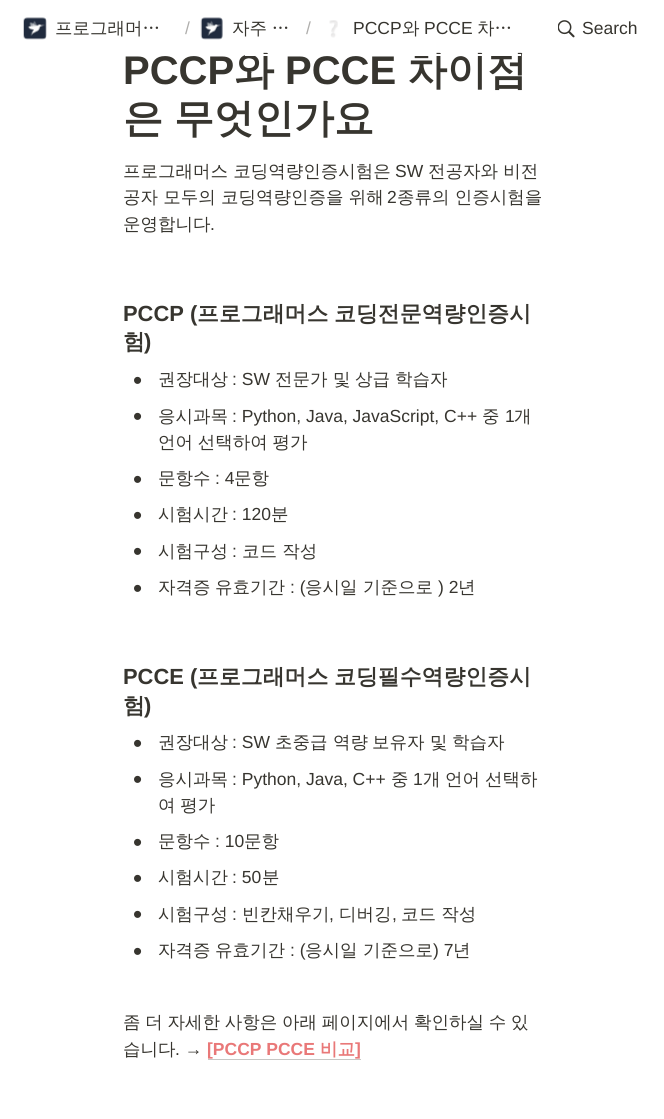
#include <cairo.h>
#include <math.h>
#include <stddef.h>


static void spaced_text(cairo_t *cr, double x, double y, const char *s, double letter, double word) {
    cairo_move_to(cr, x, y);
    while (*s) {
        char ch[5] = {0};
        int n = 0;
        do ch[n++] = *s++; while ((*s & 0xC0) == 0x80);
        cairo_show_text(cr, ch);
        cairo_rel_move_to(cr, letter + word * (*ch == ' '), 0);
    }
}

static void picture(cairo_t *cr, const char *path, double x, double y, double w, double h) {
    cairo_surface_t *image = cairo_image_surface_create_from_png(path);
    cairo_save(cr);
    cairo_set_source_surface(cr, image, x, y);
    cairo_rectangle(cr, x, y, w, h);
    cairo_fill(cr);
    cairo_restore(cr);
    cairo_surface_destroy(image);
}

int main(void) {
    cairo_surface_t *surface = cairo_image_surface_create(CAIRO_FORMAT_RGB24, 664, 1119);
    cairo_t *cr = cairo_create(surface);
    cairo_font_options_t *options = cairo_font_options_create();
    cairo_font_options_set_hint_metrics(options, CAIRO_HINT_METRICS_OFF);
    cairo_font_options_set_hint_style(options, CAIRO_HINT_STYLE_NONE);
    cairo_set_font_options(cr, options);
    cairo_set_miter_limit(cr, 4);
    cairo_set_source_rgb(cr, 1, 1, 1);
    cairo_paint(cr);
    cairo_select_font_face(cr, "WenQuanYi Zen Hei", CAIRO_FONT_SLANT_NORMAL, CAIRO_FONT_WEIGHT_BOLD);
    cairo_set_font_size(cr, 40);
    cairo_set_source_rgb(cr, 0.216, 0.208, 0.184);
    cairo_move_to(cr, 234, 84);
    cairo_show_text(cr, "와");
    cairo_move_to(cr, 407, 84);
    cairo_show_text(cr, "차이점");
    cairo_set_source_rgb(cr, 1, 1, 1);
    cairo_rectangle(cr, 245, 54, 276, 2);
    cairo_fill(cr);
    picture(cr, "img1.png", 23, 17, 24, 23);
    cairo_select_font_face(cr, "WenQuanYi Zen Hei Medium", CAIRO_FONT_SLANT_NORMAL, CAIRO_FONT_WEIGHT_NORMAL);
    cairo_set_font_size(cr, 17.5);
    cairo_set_source_rgb(cr, 0.216, 0.208, 0.184);
    cairo_move_to(cr, 55, 34);
    cairo_show_text(cr, "프로그래머…");
    cairo_select_font_face(cr, "Liberation Sans", CAIRO_FONT_SLANT_NORMAL, CAIRO_FONT_WEIGHT_NORMAL);
    cairo_set_source_rgb(cr, 0.686, 0.682, 0.675);
    cairo_move_to(cr, 185, 34);
    cairo_show_text(cr, "/");
    picture(cr, "img2.png", 200, 17, 23, 23);
    cairo_select_font_face(cr, "WenQuanYi Zen Hei Medium", CAIRO_FONT_SLANT_NORMAL, CAIRO_FONT_WEIGHT_NORMAL);
    cairo_set_source_rgb(cr, 0.216, 0.208, 0.184);
    spaced_text(cr, 232, 34, "자주 …", 0, -0.5);
    cairo_select_font_face(cr, "Liberation Sans", CAIRO_FONT_SLANT_NORMAL, CAIRO_FONT_WEIGHT_NORMAL);
    cairo_set_source_rgb(cr, 0.686, 0.682, 0.675);
    cairo_move_to(cr, 306, 34);
    cairo_show_text(cr, "/");
    picture(cr, "img3.png", 329, 20, 9, 18);
    cairo_set_source_rgb(cr, 0.216, 0.208, 0.184);
    cairo_move_to(cr, 353, 34);
    cairo_show_text(cr, "PCCP");
    cairo_select_font_face(cr, "WenQuanYi Zen Hei Medium", CAIRO_FONT_SLANT_NORMAL, CAIRO_FONT_WEIGHT_NORMAL);
    cairo_move_to(cr, 402, 34);
    cairo_show_text(cr, "와");
    cairo_select_font_face(cr, "Liberation Sans", CAIRO_FONT_SLANT_NORMAL, CAIRO_FONT_WEIGHT_NORMAL);
    cairo_move_to(cr, 424, 34);
    cairo_show_text(cr, "PCCE");
    cairo_select_font_face(cr, "WenQuanYi Zen Hei Medium", CAIRO_FONT_SLANT_NORMAL, CAIRO_FONT_WEIGHT_NORMAL);
    cairo_move_to(cr, 477, 34);
    cairo_show_text(cr, "차…");
    picture(cr, "img4.png", 558, 20, 17, 18);
    cairo_select_font_face(cr, "Liberation Sans", CAIRO_FONT_SLANT_NORMAL, CAIRO_FONT_WEIGHT_NORMAL);
    cairo_move_to(cr, 582, 34);
    cairo_show_text(cr, "Search");
    cairo_select_font_face(cr, "Liberation Sans", CAIRO_FONT_SLANT_NORMAL, CAIRO_FONT_WEIGHT_BOLD);
    cairo_set_font_size(cr, 40);
    cairo_move_to(cr, 123, 84);
    cairo_show_text(cr, "PCCP");
    cairo_move_to(cr, 285, 84);
    cairo_show_text(cr, "PCCE");
    cairo_select_font_face(cr, "WenQuanYi Zen Hei", CAIRO_FONT_SLANT_NORMAL, CAIRO_FONT_WEIGHT_BOLD);
    spaced_text(cr, 123, 132, "은 무엇인가요", 0, -1);
    cairo_select_font_face(cr, "WenQuanYi Zen Hei Medium", CAIRO_FONT_SLANT_NORMAL, CAIRO_FONT_WEIGHT_NORMAL);
    cairo_set_font_size(cr, 17.5);
    cairo_move_to(cr, 123, 177);
    cairo_show_text(cr, "프로그래머스 코딩역량인증시험은");
    cairo_select_font_face(cr, "Liberation Sans", CAIRO_FONT_SLANT_NORMAL, CAIRO_FONT_WEIGHT_NORMAL);
    cairo_move_to(cr, 395, 177);
    cairo_show_text(cr, "SW");
    cairo_select_font_face(cr, "WenQuanYi Zen Hei Medium", CAIRO_FONT_SLANT_NORMAL, CAIRO_FONT_WEIGHT_NORMAL);
    cairo_move_to(cr, 428, 177);
    cairo_show_text(cr, "전공자와 비전");
    cairo_move_to(cr, 123, 203);
    cairo_show_text(cr, "공자 모두의 코딩역량인증을 위해");
    cairo_select_font_face(cr, "Liberation Sans", CAIRO_FONT_SLANT_NORMAL, CAIRO_FONT_WEIGHT_NORMAL);
    cairo_move_to(cr, 387, 203);
    cairo_show_text(cr, "2");
    cairo_select_font_face(cr, "WenQuanYi Zen Hei Medium", CAIRO_FONT_SLANT_NORMAL, CAIRO_FONT_WEIGHT_NORMAL);
    cairo_move_to(cr, 397, 203);
    cairo_show_text(cr, "종류의 인증시험을");
    cairo_move_to(cr, 123, 230);
    cairo_show_text(cr, "운영합니다");
    cairo_select_font_face(cr, "Liberation Sans", CAIRO_FONT_SLANT_NORMAL, CAIRO_FONT_WEIGHT_NORMAL);
    cairo_move_to(cr, 210, 230);
    cairo_show_text(cr, ".");
    cairo_select_font_face(cr, "Liberation Sans", CAIRO_FONT_SLANT_NORMAL, CAIRO_FONT_WEIGHT_BOLD);
    cairo_set_font_size(cr, 21.9);
    cairo_move_to(cr, 123, 321);
    cairo_show_text(cr, "PCCP (");
    cairo_select_font_face(cr, "WenQuanYi Zen Hei", CAIRO_FONT_SLANT_NORMAL, CAIRO_FONT_WEIGHT_BOLD);
    cairo_move_to(cr, 197, 321);
    cairo_show_text(cr, "프로그래머스");
    cairo_move_to(cr, 334, 321);
    cairo_show_text(cr, "코딩전문역량인증시");
    cairo_move_to(cr, 123, 349);
    cairo_show_text(cr, "험");
    cairo_select_font_face(cr, "Liberation Sans", CAIRO_FONT_SLANT_NORMAL, CAIRO_FONT_WEIGHT_BOLD);
    cairo_move_to(cr, 144, 349);
    cairo_show_text(cr, ")");
    cairo_select_font_face(cr, "Liberation Sans", CAIRO_FONT_SLANT_NORMAL, CAIRO_FONT_WEIGHT_NORMAL);
    cairo_set_font_size(cr, 26);
    cairo_move_to(cr, 133, 389);
    cairo_show_text(cr, "•");
    cairo_select_font_face(cr, "WenQuanYi Zen Hei Medium", CAIRO_FONT_SLANT_NORMAL, CAIRO_FONT_WEIGHT_NORMAL);
    cairo_set_font_size(cr, 17.5);
    cairo_move_to(cr, 158, 385);
    cairo_show_text(cr, "권장대상");
    cairo_select_font_face(cr, "Liberation Sans", CAIRO_FONT_SLANT_NORMAL, CAIRO_FONT_WEIGHT_NORMAL);
    cairo_move_to(cr, 232, 385);
    cairo_show_text(cr, ": SW");
    cairo_select_font_face(cr, "WenQuanYi Zen Hei Medium", CAIRO_FONT_SLANT_NORMAL, CAIRO_FONT_WEIGHT_NORMAL);
    cairo_move_to(cr, 275, 385);
    cairo_show_text(cr, "전문가");
    cairo_move_to(cr, 333, 385);
    cairo_show_text(cr, "및");
    cairo_move_to(cr, 355, 385);
    cairo_show_text(cr, "상급");
    cairo_move_to(cr, 395, 385);
    cairo_show_text(cr, "학습자");
    cairo_select_font_face(cr, "Liberation Sans", CAIRO_FONT_SLANT_NORMAL, CAIRO_FONT_WEIGHT_NORMAL);
    cairo_set_font_size(cr, 26);
    cairo_move_to(cr, 133, 425);
    cairo_show_text(cr, "•");
    cairo_select_font_face(cr, "WenQuanYi Zen Hei Medium", CAIRO_FONT_SLANT_NORMAL, CAIRO_FONT_WEIGHT_NORMAL);
    cairo_set_font_size(cr, 17.5);
    cairo_move_to(cr, 158, 422);
    cairo_show_text(cr, "응시과목");
    cairo_select_font_face(cr, "Liberation Sans", CAIRO_FONT_SLANT_NORMAL, CAIRO_FONT_WEIGHT_NORMAL);
    cairo_move_to(cr, 232, 422);
    cairo_show_text(cr, ": Python, Java, JavaScript, C++");
    cairo_select_font_face(cr, "WenQuanYi Zen Hei Medium", CAIRO_FONT_SLANT_NORMAL, CAIRO_FONT_WEIGHT_NORMAL);
    cairo_move_to(cr, 482, 422);
    cairo_show_text(cr, "중");
    cairo_select_font_face(cr, "Liberation Sans", CAIRO_FONT_SLANT_NORMAL, CAIRO_FONT_WEIGHT_NORMAL);
    cairo_move_to(cr, 505, 422);
    cairo_show_text(cr, "1");
    cairo_select_font_face(cr, "WenQuanYi Zen Hei Medium", CAIRO_FONT_SLANT_NORMAL, CAIRO_FONT_WEIGHT_NORMAL);
    cairo_move_to(cr, 514, 422);
    cairo_show_text(cr, "개");
    spaced_text(cr, 158, 448, "언어 선택하여 평가", 0, -0.5);
    cairo_select_font_face(cr, "Liberation Sans", CAIRO_FONT_SLANT_NORMAL, CAIRO_FONT_WEIGHT_NORMAL);
    cairo_set_font_size(cr, 26);
    cairo_move_to(cr, 133, 488);
    cairo_show_text(cr, "•");
    cairo_select_font_face(cr, "WenQuanYi Zen Hei Medium", CAIRO_FONT_SLANT_NORMAL, CAIRO_FONT_WEIGHT_NORMAL);
    cairo_set_font_size(cr, 17.5);
    cairo_move_to(cr, 158, 484);
    cairo_show_text(cr, "문항수");
    cairo_select_font_face(cr, "Liberation Sans", CAIRO_FONT_SLANT_NORMAL, CAIRO_FONT_WEIGHT_NORMAL);
    cairo_move_to(cr, 215, 484);
    cairo_show_text(cr, ": 4");
    cairo_select_font_face(cr, "WenQuanYi Zen Hei Medium", CAIRO_FONT_SLANT_NORMAL, CAIRO_FONT_WEIGHT_NORMAL);
    cairo_move_to(cr, 234, 484);
    cairo_show_text(cr, "문항");
    cairo_select_font_face(cr, "Liberation Sans", CAIRO_FONT_SLANT_NORMAL, CAIRO_FONT_WEIGHT_NORMAL);
    cairo_set_font_size(cr, 26);
    cairo_move_to(cr, 133, 524);
    cairo_show_text(cr, "•");
    cairo_select_font_face(cr, "WenQuanYi Zen Hei Medium", CAIRO_FONT_SLANT_NORMAL, CAIRO_FONT_WEIGHT_NORMAL);
    cairo_set_font_size(cr, 17.5);
    cairo_move_to(cr, 158, 520);
    cairo_show_text(cr, "시험시간");
    cairo_select_font_face(cr, "Liberation Sans", CAIRO_FONT_SLANT_NORMAL, CAIRO_FONT_WEIGHT_NORMAL);
    cairo_move_to(cr, 232, 520);
    cairo_show_text(cr, ": 120");
    cairo_select_font_face(cr, "WenQuanYi Zen Hei Medium", CAIRO_FONT_SLANT_NORMAL, CAIRO_FONT_WEIGHT_NORMAL);
    cairo_move_to(cr, 271, 520);
    cairo_show_text(cr, "분");
    cairo_select_font_face(cr, "Liberation Sans", CAIRO_FONT_SLANT_NORMAL, CAIRO_FONT_WEIGHT_NORMAL);
    cairo_set_font_size(cr, 26);
    cairo_move_to(cr, 133, 560);
    cairo_show_text(cr, "•");
    cairo_select_font_face(cr, "WenQuanYi Zen Hei Medium", CAIRO_FONT_SLANT_NORMAL, CAIRO_FONT_WEIGHT_NORMAL);
    cairo_set_font_size(cr, 17.5);
    cairo_move_to(cr, 158, 557);
    cairo_show_text(cr, "시험구성");
    cairo_select_font_face(cr, "Liberation Sans", CAIRO_FONT_SLANT_NORMAL, CAIRO_FONT_WEIGHT_NORMAL);
    cairo_move_to(cr, 232, 557);
    cairo_show_text(cr, ":");
    cairo_select_font_face(cr, "WenQuanYi Zen Hei Medium", CAIRO_FONT_SLANT_NORMAL, CAIRO_FONT_WEIGHT_NORMAL);
    cairo_move_to(cr, 242, 557);
    cairo_show_text(cr, "코드 작성");
    cairo_select_font_face(cr, "Liberation Sans", CAIRO_FONT_SLANT_NORMAL, CAIRO_FONT_WEIGHT_NORMAL);
    cairo_set_font_size(cr, 26);
    cairo_move_to(cr, 133, 597);
    cairo_show_text(cr, "•");
    cairo_select_font_face(cr, "WenQuanYi Zen Hei Medium", CAIRO_FONT_SLANT_NORMAL, CAIRO_FONT_WEIGHT_NORMAL);
    cairo_set_font_size(cr, 17.5);
    cairo_move_to(cr, 158, 593);
    cairo_show_text(cr, "자격증");
    cairo_move_to(cr, 215, 593);
    cairo_show_text(cr, "유효기간");
    cairo_select_font_face(cr, "Liberation Sans", CAIRO_FONT_SLANT_NORMAL, CAIRO_FONT_WEIGHT_NORMAL);
    cairo_move_to(cr, 290, 593);
    cairo_show_text(cr, ": (");
    cairo_select_font_face(cr, "WenQuanYi Zen Hei Medium", CAIRO_FONT_SLANT_NORMAL, CAIRO_FONT_WEIGHT_NORMAL);
    cairo_move_to(cr, 305, 593);
    cairo_show_text(cr, "응시일");
    cairo_move_to(cr, 363, 593);
    cairo_show_text(cr, "기준으로");
    cairo_select_font_face(cr, "Liberation Sans", CAIRO_FONT_SLANT_NORMAL, CAIRO_FONT_WEIGHT_NORMAL);
    cairo_move_to(cr, 438, 593);
    cairo_show_text(cr, ") 2");
    cairo_select_font_face(cr, "WenQuanYi Zen Hei Medium", CAIRO_FONT_SLANT_NORMAL, CAIRO_FONT_WEIGHT_NORMAL);
    cairo_move_to(cr, 458, 593);
    cairo_show_text(cr, "년");
    cairo_select_font_face(cr, "Liberation Sans", CAIRO_FONT_SLANT_NORMAL, CAIRO_FONT_WEIGHT_BOLD);
    cairo_set_font_size(cr, 21.9);
    cairo_move_to(cr, 123, 684);
    cairo_show_text(cr, "PCCE (");
    cairo_select_font_face(cr, "WenQuanYi Zen Hei", CAIRO_FONT_SLANT_NORMAL, CAIRO_FONT_WEIGHT_BOLD);
    cairo_move_to(cr, 197, 684);
    cairo_show_text(cr, "프로그래머스");
    cairo_move_to(cr, 334, 684);
    cairo_show_text(cr, "코딩필수역량인증시");
    cairo_move_to(cr, 123, 713);
    cairo_show_text(cr, "험");
    cairo_select_font_face(cr, "Liberation Sans", CAIRO_FONT_SLANT_NORMAL, CAIRO_FONT_WEIGHT_BOLD);
    cairo_move_to(cr, 144, 713);
    cairo_show_text(cr, ")");
    cairo_select_font_face(cr, "Liberation Sans", CAIRO_FONT_SLANT_NORMAL, CAIRO_FONT_WEIGHT_NORMAL);
    cairo_set_font_size(cr, 26);
    cairo_move_to(cr, 133, 752);
    cairo_show_text(cr, "•");
    cairo_select_font_face(cr, "WenQuanYi Zen Hei Medium", CAIRO_FONT_SLANT_NORMAL, CAIRO_FONT_WEIGHT_NORMAL);
    cairo_set_font_size(cr, 17.5);
    cairo_move_to(cr, 158, 748);
    cairo_show_text(cr, "권장대상");
    cairo_select_font_face(cr, "Liberation Sans", CAIRO_FONT_SLANT_NORMAL, CAIRO_FONT_WEIGHT_NORMAL);
    cairo_move_to(cr, 232, 748);
    cairo_show_text(cr, ": SW");
    cairo_select_font_face(cr, "WenQuanYi Zen Hei Medium", CAIRO_FONT_SLANT_NORMAL, CAIRO_FONT_WEIGHT_NORMAL);
    cairo_move_to(cr, 275, 748);
    cairo_show_text(cr, "초중급");
    cairo_move_to(cr, 333, 748);
    cairo_show_text(cr, "역량");
    cairo_move_to(cr, 372, 748);
    cairo_show_text(cr, "보유자");
    cairo_move_to(cr, 430, 748);
    cairo_show_text(cr, "및");
    cairo_move_to(cr, 452, 748);
    cairo_show_text(cr, "학습자");
    cairo_select_font_face(cr, "Liberation Sans", CAIRO_FONT_SLANT_NORMAL, CAIRO_FONT_WEIGHT_NORMAL);
    cairo_set_font_size(cr, 26);
    cairo_move_to(cr, 133, 788);
    cairo_show_text(cr, "•");
    cairo_select_font_face(cr, "WenQuanYi Zen Hei Medium", CAIRO_FONT_SLANT_NORMAL, CAIRO_FONT_WEIGHT_NORMAL);
    cairo_set_font_size(cr, 17.5);
    cairo_move_to(cr, 158, 785);
    cairo_show_text(cr, "응시과목");
    cairo_select_font_face(cr, "Liberation Sans", CAIRO_FONT_SLANT_NORMAL, CAIRO_FONT_WEIGHT_NORMAL);
    cairo_move_to(cr, 232, 785);
    cairo_show_text(cr, ": Python, Java, C++");
    cairo_select_font_face(cr, "WenQuanYi Zen Hei Medium", CAIRO_FONT_SLANT_NORMAL, CAIRO_FONT_WEIGHT_NORMAL);
    cairo_move_to(cr, 391, 785);
    cairo_show_text(cr, "중");
    cairo_select_font_face(cr, "Liberation Sans", CAIRO_FONT_SLANT_NORMAL, CAIRO_FONT_WEIGHT_NORMAL);
    cairo_move_to(cr, 413, 785);
    cairo_show_text(cr, "1");
    cairo_select_font_face(cr, "WenQuanYi Zen Hei Medium", CAIRO_FONT_SLANT_NORMAL, CAIRO_FONT_WEIGHT_NORMAL);
    cairo_move_to(cr, 423, 785);
    cairo_show_text(cr, "개");
    cairo_move_to(cr, 445, 785);
    cairo_show_text(cr, "언어");
    cairo_move_to(cr, 485, 785);
    cairo_show_text(cr, "선택하");
    spaced_text(cr, 158, 811, "여 평가", 0, -0.5);
    cairo_select_font_face(cr, "Liberation Sans", CAIRO_FONT_SLANT_NORMAL, CAIRO_FONT_WEIGHT_NORMAL);
    cairo_set_font_size(cr, 26);
    cairo_move_to(cr, 133, 851);
    cairo_show_text(cr, "•");
    cairo_select_font_face(cr, "WenQuanYi Zen Hei Medium", CAIRO_FONT_SLANT_NORMAL, CAIRO_FONT_WEIGHT_NORMAL);
    cairo_set_font_size(cr, 17.5);
    cairo_move_to(cr, 158, 847);
    cairo_show_text(cr, "문항수");
    cairo_select_font_face(cr, "Liberation Sans", CAIRO_FONT_SLANT_NORMAL, CAIRO_FONT_WEIGHT_NORMAL);
    cairo_move_to(cr, 215, 847);
    cairo_show_text(cr, ": 10");
    cairo_select_font_face(cr, "WenQuanYi Zen Hei Medium", CAIRO_FONT_SLANT_NORMAL, CAIRO_FONT_WEIGHT_NORMAL);
    cairo_move_to(cr, 244, 847);
    cairo_show_text(cr, "문항");
    cairo_select_font_face(cr, "Liberation Sans", CAIRO_FONT_SLANT_NORMAL, CAIRO_FONT_WEIGHT_NORMAL);
    cairo_set_font_size(cr, 26);
    cairo_move_to(cr, 133, 887);
    cairo_show_text(cr, "•");
    cairo_select_font_face(cr, "WenQuanYi Zen Hei Medium", CAIRO_FONT_SLANT_NORMAL, CAIRO_FONT_WEIGHT_NORMAL);
    cairo_set_font_size(cr, 17.5);
    cairo_move_to(cr, 158, 883);
    cairo_show_text(cr, "시험시간");
    cairo_select_font_face(cr, "Liberation Sans", CAIRO_FONT_SLANT_NORMAL, CAIRO_FONT_WEIGHT_NORMAL);
    cairo_move_to(cr, 232, 883);
    cairo_show_text(cr, ": 50");
    cairo_select_font_face(cr, "WenQuanYi Zen Hei Medium", CAIRO_FONT_SLANT_NORMAL, CAIRO_FONT_WEIGHT_NORMAL);
    cairo_move_to(cr, 262, 883);
    cairo_show_text(cr, "분");
    cairo_select_font_face(cr, "Liberation Sans", CAIRO_FONT_SLANT_NORMAL, CAIRO_FONT_WEIGHT_NORMAL);
    cairo_set_font_size(cr, 26);
    cairo_move_to(cr, 133, 923);
    cairo_show_text(cr, "•");
    cairo_select_font_face(cr, "WenQuanYi Zen Hei Medium", CAIRO_FONT_SLANT_NORMAL, CAIRO_FONT_WEIGHT_NORMAL);
    cairo_set_font_size(cr, 17.5);
    cairo_move_to(cr, 158, 920);
    cairo_show_text(cr, "시험구성");
    cairo_select_font_face(cr, "Liberation Sans", CAIRO_FONT_SLANT_NORMAL, CAIRO_FONT_WEIGHT_NORMAL);
    cairo_move_to(cr, 232, 920);
    cairo_show_text(cr, ":");
    cairo_select_font_face(cr, "WenQuanYi Zen Hei Medium", CAIRO_FONT_SLANT_NORMAL, CAIRO_FONT_WEIGHT_NORMAL);
    cairo_move_to(cr, 242, 920);
    cairo_show_text(cr, "빈칸채우기");
    cairo_move_to(cr, 339, 920);
    cairo_show_text(cr, "디버깅");
    cairo_move_to(cr, 401, 920);
    cairo_show_text(cr, "코드 작성");
    cairo_select_font_face(cr, "Liberation Sans", CAIRO_FONT_SLANT_NORMAL, CAIRO_FONT_WEIGHT_NORMAL);
    cairo_move_to(cr, 329, 920);
    cairo_show_text(cr, ",");
    cairo_move_to(cr, 392, 920);
    cairo_show_text(cr, ",");
    cairo_set_font_size(cr, 26);
    cairo_move_to(cr, 133, 960);
    cairo_show_text(cr, "•");
    cairo_select_font_face(cr, "WenQuanYi Zen Hei Medium", CAIRO_FONT_SLANT_NORMAL, CAIRO_FONT_WEIGHT_NORMAL);
    cairo_set_font_size(cr, 17.5);
    cairo_move_to(cr, 158, 956);
    cairo_show_text(cr, "자격증");
    cairo_move_to(cr, 215, 956);
    cairo_show_text(cr, "유효기간");
    cairo_select_font_face(cr, "Liberation Sans", CAIRO_FONT_SLANT_NORMAL, CAIRO_FONT_WEIGHT_NORMAL);
    cairo_move_to(cr, 290, 956);
    cairo_show_text(cr, ": (");
    cairo_select_font_face(cr, "WenQuanYi Zen Hei Medium", CAIRO_FONT_SLANT_NORMAL, CAIRO_FONT_WEIGHT_NORMAL);
    cairo_move_to(cr, 305, 956);
    cairo_show_text(cr, "응시일");
    cairo_move_to(cr, 363, 956);
    cairo_show_text(cr, "기준으로");
    cairo_select_font_face(cr, "Liberation Sans", CAIRO_FONT_SLANT_NORMAL, CAIRO_FONT_WEIGHT_NORMAL);
    cairo_move_to(cr, 433, 956);
    cairo_show_text(cr, ") 7");
    cairo_select_font_face(cr, "WenQuanYi Zen Hei Medium", CAIRO_FONT_SLANT_NORMAL, CAIRO_FONT_WEIGHT_NORMAL);
    cairo_move_to(cr, 453, 956);
    cairo_show_text(cr, "년");
    spaced_text(cr, 123, 1028, "좀 더 자세한 사항은 아래 페이지에서 확인하실 수 있", 0, -0.5);
    cairo_move_to(cr, 123, 1055);
    cairo_show_text(cr, "습니다");
    cairo_select_font_face(cr, "Liberation Sans", CAIRO_FONT_SLANT_NORMAL, CAIRO_FONT_WEIGHT_NORMAL);
    cairo_move_to(cr, 175, 1055);
    cairo_show_text(cr, ". →");
    cairo_select_font_face(cr, "Liberation Sans", CAIRO_FONT_SLANT_NORMAL, CAIRO_FONT_WEIGHT_BOLD);
    cairo_set_source_rgb(cr, 0.914, 0.471, 0.471);
    cairo_move_to(cr, 207, 1055);
    cairo_show_text(cr, "[PCCP PCCE");
    cairo_set_source_rgb(cr, 0.78, 0.78, 0.773);
    cairo_rectangle(cr, 208, 1059, 153, 1);
    cairo_fill(cr);
    cairo_select_font_face(cr, "WenQuanYi Zen Hei", CAIRO_FONT_SLANT_NORMAL, CAIRO_FONT_WEIGHT_BOLD);
    cairo_set_source_rgb(cr, 0.914, 0.471, 0.471);
    cairo_move_to(cr, 320, 1055);
    cairo_show_text(cr, "비교");
    cairo_select_font_face(cr, "Liberation Sans", CAIRO_FONT_SLANT_NORMAL, CAIRO_FONT_WEIGHT_BOLD);
    cairo_move_to(cr, 355, 1055);
    cairo_show_text(cr, "]");
    cairo_surface_write_to_png(surface, "page.png");
    cairo_font_options_destroy(options);
    cairo_destroy(cr);
    cairo_surface_destroy(surface);
    return 0;
}
